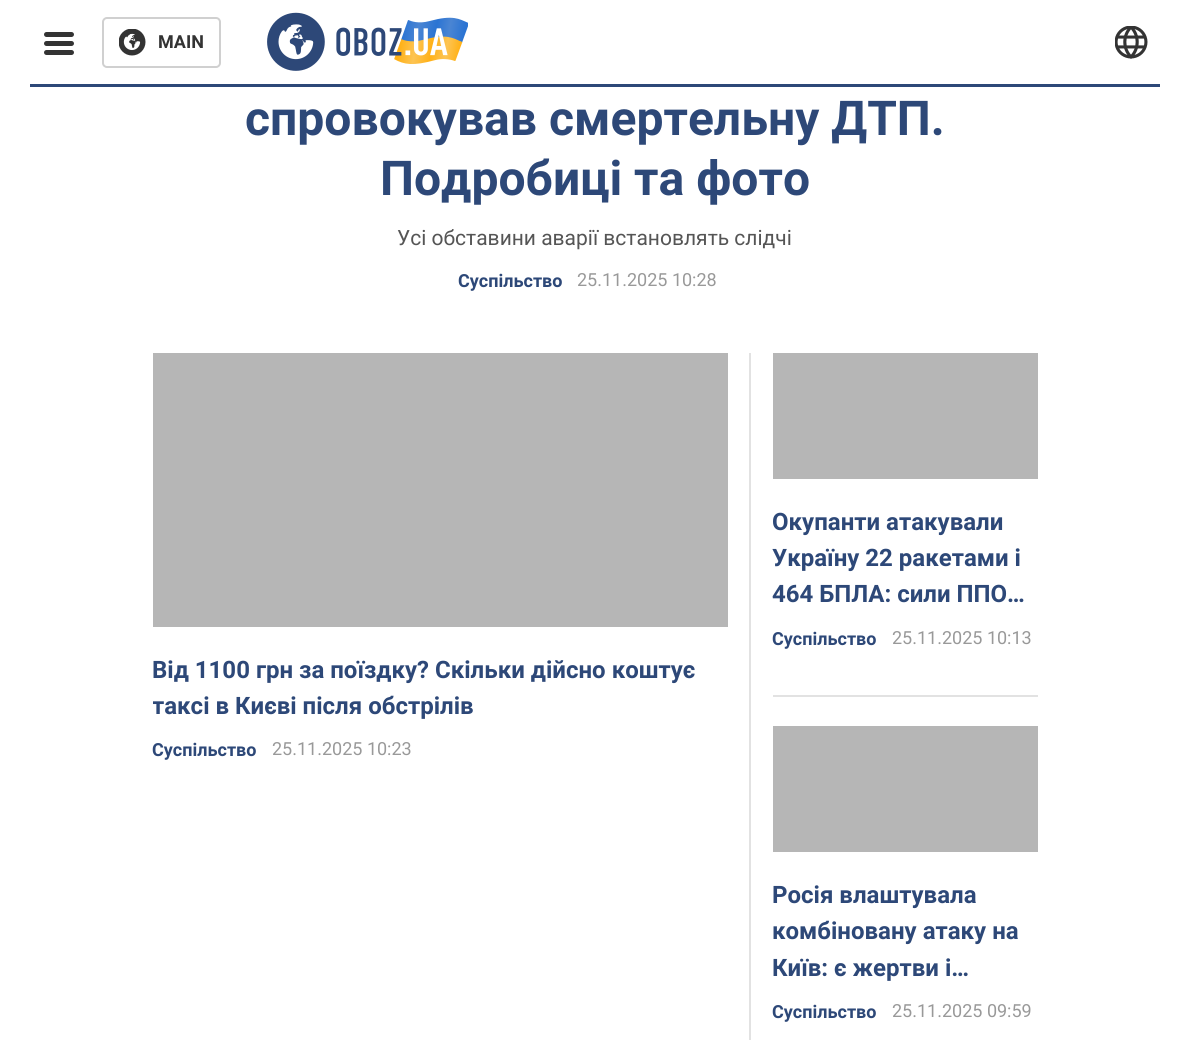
#include <cairo.h>
#include <math.h>
#include <stddef.h>


static void round_rect(cairo_t *cr, double x, double y, double w, double h, double r) {
    cairo_new_sub_path(cr);
    cairo_arc(cr, x + w - r, y + h - r, r, 0, M_PI / 2);
    cairo_arc(cr, x + r, y + h - r, r, M_PI / 2, M_PI);
    cairo_arc(cr, x + r, y + r, r, M_PI, 1.5 * M_PI);
    cairo_arc(cr, x + w - r, y + r, r, 1.5 * M_PI, 2 * M_PI);
    cairo_close_path(cr);
}

static void picture(cairo_t *cr, const char *path, double x, double y, double w, double h) {
    cairo_surface_t *image = cairo_image_surface_create_from_png(path);
    cairo_save(cr);
    cairo_set_source_surface(cr, image, x, y);
    cairo_rectangle(cr, x, y, w, h);
    cairo_fill(cr);
    cairo_restore(cr);
    cairo_surface_destroy(image);
}

int main(void) {
    cairo_surface_t *surface = cairo_image_surface_create(CAIRO_FORMAT_RGB24, 1189, 1055);
    cairo_t *cr = cairo_create(surface);
    cairo_font_options_t *options = cairo_font_options_create();
    cairo_font_options_set_hint_metrics(options, CAIRO_HINT_METRICS_OFF);
    cairo_font_options_set_hint_style(options, CAIRO_HINT_STYLE_NONE);
    cairo_set_font_options(cr, options);
    cairo_set_miter_limit(cr, 4);
    cairo_set_source_rgb(cr, 1, 1, 1);
    cairo_paint(cr);
    cairo_set_source_rgb(cr, 0.176, 0.282, 0.471);
    cairo_rectangle(cr, 30, 84, 1130, 3);
    cairo_fill(cr);
    cairo_set_source_rgb(cr, 0.2, 0.2, 0.2);
    round_rect(cr, 44, 41, 30, 5, 2.5);
    cairo_fill(cr);
    round_rect(cr, 44, 32, 30, 5, 2.5);
    cairo_fill(cr);
    round_rect(cr, 44, 50, 30, 5, 2.5);
    cairo_fill(cr);
    round_rect(cr, 103, 18, 117, 49, 4);
    cairo_set_source_rgb(cr, 0.816, 0.816, 0.816);
    cairo_stroke(cr);
    picture(cr, "img1.png", 119, 29, 27, 27);
    cairo_select_font_face(cr, "Roboto", CAIRO_FONT_SLANT_NORMAL, CAIRO_FONT_WEIGHT_BOLD);
    cairo_set_font_size(cr, 18);
    cairo_set_source_rgb(cr, 0.2, 0.2, 0.2);
    cairo_move_to(cr, 158, 48);
    cairo_show_text(cr, "MAIN");
    picture(cr, "img2.png", 267, 12, 201, 59);
    picture(cr, "img3.png", 1115, 26, 33, 33);
    cairo_set_font_size(cr, 48);
    cairo_set_source_rgb(cr, 0.176, 0.282, 0.471);
    cairo_move_to(cr, 245, 135);
    cairo_show_text(cr, "спровокував смертельну ДТП.");
    cairo_move_to(cr, 380, 195);
    cairo_show_text(cr, "Подробиці та фото");
    cairo_select_font_face(cr, "Roboto", CAIRO_FONT_SLANT_NORMAL, CAIRO_FONT_WEIGHT_NORMAL);
    cairo_set_font_size(cr, 21);
    cairo_set_source_rgb(cr, 0.333, 0.333, 0.333);
    cairo_move_to(cr, 397, 245);
    cairo_show_text(cr, "Усі обставини аварії встановлять слідчі");
    cairo_select_font_face(cr, "Roboto", CAIRO_FONT_SLANT_NORMAL, CAIRO_FONT_WEIGHT_BOLD);
    cairo_set_font_size(cr, 18);
    cairo_set_source_rgb(cr, 0.176, 0.282, 0.471);
    cairo_move_to(cr, 458, 287);
    cairo_show_text(cr, "Суспільство");
    cairo_select_font_face(cr, "Roboto", CAIRO_FONT_SLANT_NORMAL, CAIRO_FONT_WEIGHT_NORMAL);
    cairo_set_source_rgb(cr, 0.6, 0.6, 0.6);
    cairo_move_to(cr, 577, 286);
    cairo_show_text(cr, "25.11.2025 10:28");
    cairo_set_source_rgb(cr, 0.714, 0.714, 0.714);
    cairo_rectangle(cr, 773, 353, 265, 126);
    cairo_fill(cr);
    cairo_select_font_face(cr, "Roboto", CAIRO_FONT_SLANT_NORMAL, CAIRO_FONT_WEIGHT_BOLD);
    cairo_set_font_size(cr, 24);
    cairo_set_source_rgb(cr, 0.176, 0.282, 0.471);
    cairo_move_to(cr, 772, 530);
    cairo_show_text(cr, "Окупанти атакували");
    cairo_move_to(cr, 772, 566);
    cairo_show_text(cr, "Україну 22 ракетами і");
    cairo_move_to(cr, 772, 602);
    cairo_show_text(cr, "464 БПЛА: сили ППО…");
    cairo_set_font_size(cr, 18);
    cairo_move_to(cr, 772, 645);
    cairo_show_text(cr, "Суспільство");
    cairo_select_font_face(cr, "Roboto", CAIRO_FONT_SLANT_NORMAL, CAIRO_FONT_WEIGHT_NORMAL);
    cairo_set_source_rgb(cr, 0.6, 0.6, 0.6);
    cairo_move_to(cr, 892, 644);
    cairo_show_text(cr, "25.11.2025 10:13");
    cairo_set_source_rgb(cr, 0.886, 0.886, 0.886);
    cairo_rectangle(cr, 773, 695, 265, 2);
    cairo_fill(cr);
    cairo_set_source_rgb(cr, 0.714, 0.714, 0.714);
    cairo_rectangle(cr, 153, 353, 575, 274);
    cairo_fill(cr);
    cairo_select_font_face(cr, "Roboto", CAIRO_FONT_SLANT_NORMAL, CAIRO_FONT_WEIGHT_BOLD);
    cairo_set_font_size(cr, 24);
    cairo_set_source_rgb(cr, 0.176, 0.282, 0.471);
    cairo_move_to(cr, 152, 678);
    cairo_show_text(cr, "Від 1100 грн за поїздку? Скільки дійсно коштує");
    cairo_save(cr);
    cairo_rectangle(cr, 153, 650, 575, 72);
    cairo_clip(cr);
    cairo_move_to(cr, 152, 714);
    cairo_show_text(cr, "таксі в Києві після обстрілів");
    cairo_restore(cr);
    cairo_set_font_size(cr, 18);
    cairo_move_to(cr, 152, 756);
    cairo_show_text(cr, "Суспільство");
    cairo_select_font_face(cr, "Roboto", CAIRO_FONT_SLANT_NORMAL, CAIRO_FONT_WEIGHT_NORMAL);
    cairo_set_source_rgb(cr, 0.6, 0.6, 0.6);
    cairo_move_to(cr, 272, 755);
    cairo_show_text(cr, "25.11.2025 10:23");
    cairo_set_source_rgb(cr, 0.886, 0.886, 0.886);
    cairo_rectangle(cr, 749, 353, 2, 687);
    cairo_fill(cr);
    cairo_set_source_rgb(cr, 0.714, 0.714, 0.714);
    cairo_rectangle(cr, 773, 726, 265, 126);
    cairo_fill(cr);
    cairo_select_font_face(cr, "Roboto", CAIRO_FONT_SLANT_NORMAL, CAIRO_FONT_WEIGHT_BOLD);
    cairo_set_font_size(cr, 24);
    cairo_set_source_rgb(cr, 0.176, 0.282, 0.471);
    cairo_move_to(cr, 772, 903);
    cairo_show_text(cr, "Росія влаштувала");
    cairo_move_to(cr, 772, 939);
    cairo_show_text(cr, "комбіновану атаку на");
    cairo_move_to(cr, 772, 976);
    cairo_show_text(cr, "Київ: є жертви і…");
    cairo_set_font_size(cr, 18);
    cairo_move_to(cr, 772, 1018);
    cairo_show_text(cr, "Суспільство");
    cairo_select_font_face(cr, "Roboto", CAIRO_FONT_SLANT_NORMAL, CAIRO_FONT_WEIGHT_NORMAL);
    cairo_set_source_rgb(cr, 0.6, 0.6, 0.6);
    cairo_move_to(cr, 892, 1017);
    cairo_show_text(cr, "25.11.2025 09:59");
    cairo_surface_write_to_png(surface, "page.png");
    cairo_font_options_destroy(options);
    cairo_destroy(cr);
    cairo_surface_destroy(surface);
    return 0;
}
